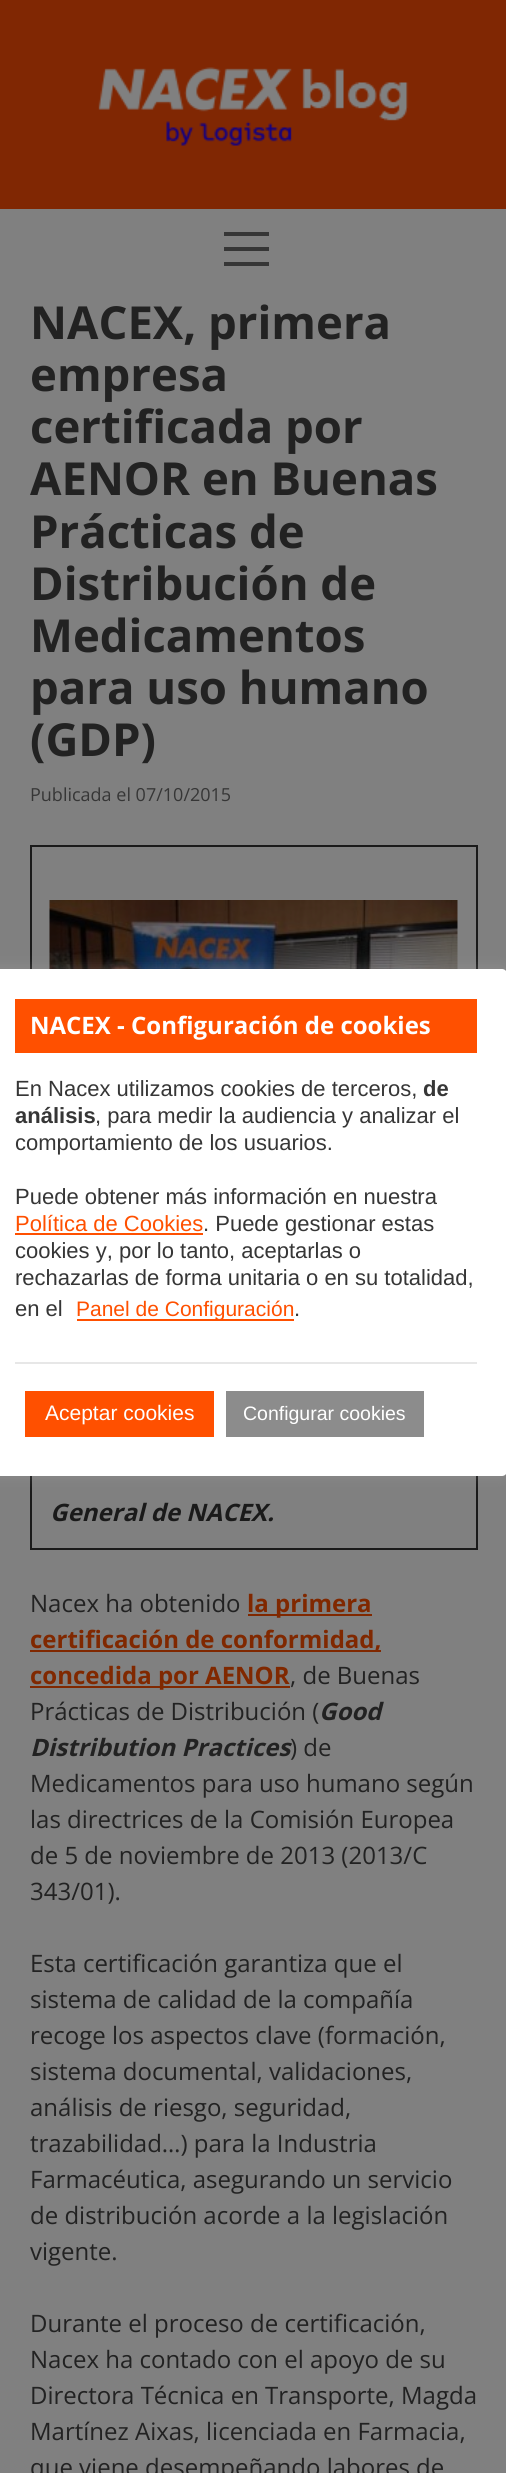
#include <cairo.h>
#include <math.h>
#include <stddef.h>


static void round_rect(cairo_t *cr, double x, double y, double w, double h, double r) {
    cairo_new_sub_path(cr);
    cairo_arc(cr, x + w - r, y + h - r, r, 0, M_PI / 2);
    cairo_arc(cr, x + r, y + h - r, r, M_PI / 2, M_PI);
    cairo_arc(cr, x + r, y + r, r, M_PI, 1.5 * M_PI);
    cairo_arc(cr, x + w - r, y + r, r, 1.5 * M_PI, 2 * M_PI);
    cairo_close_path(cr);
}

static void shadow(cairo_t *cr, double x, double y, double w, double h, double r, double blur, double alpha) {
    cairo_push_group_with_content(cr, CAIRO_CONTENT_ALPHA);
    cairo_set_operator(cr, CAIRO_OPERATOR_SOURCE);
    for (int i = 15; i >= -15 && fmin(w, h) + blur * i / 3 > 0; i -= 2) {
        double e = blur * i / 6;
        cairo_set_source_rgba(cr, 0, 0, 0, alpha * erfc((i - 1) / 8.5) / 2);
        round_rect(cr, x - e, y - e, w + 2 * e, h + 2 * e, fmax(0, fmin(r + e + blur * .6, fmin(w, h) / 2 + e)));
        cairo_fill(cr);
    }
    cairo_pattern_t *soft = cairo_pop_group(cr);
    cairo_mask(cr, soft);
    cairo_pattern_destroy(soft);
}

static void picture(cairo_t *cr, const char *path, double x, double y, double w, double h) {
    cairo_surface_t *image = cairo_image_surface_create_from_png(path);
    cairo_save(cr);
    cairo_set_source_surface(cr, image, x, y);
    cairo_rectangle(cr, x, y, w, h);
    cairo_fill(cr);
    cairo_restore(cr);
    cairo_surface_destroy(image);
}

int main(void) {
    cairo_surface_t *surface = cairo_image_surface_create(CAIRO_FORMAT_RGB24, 506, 2473);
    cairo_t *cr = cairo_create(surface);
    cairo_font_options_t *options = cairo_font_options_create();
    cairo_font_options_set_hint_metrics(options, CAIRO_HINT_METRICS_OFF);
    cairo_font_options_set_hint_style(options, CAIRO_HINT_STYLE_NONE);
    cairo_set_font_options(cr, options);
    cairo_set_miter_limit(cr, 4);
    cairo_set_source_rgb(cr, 0.502, 0.502, 0.502);
    cairo_paint(cr);
    cairo_set_source_rgb(cr, 0.502, 0.153, 0.012);
    cairo_rectangle(cr, 0, 0, 506, 209);
    cairo_fill(cr);
    picture(cr, "img1.png", 98, 67, 311, 79);
    cairo_set_source_rgb(cr, 0.212, 0.212, 0.212);
    cairo_rectangle(cr, 224, 232, 45, 4);
    cairo_fill(cr);
    cairo_rectangle(cr, 224, 247, 45, 4);
    cairo_fill(cr);
    cairo_rectangle(cr, 224, 262, 45, 4);
    cairo_fill(cr);
    cairo_select_font_face(cr, "Open Sans", CAIRO_FONT_SLANT_NORMAL, CAIRO_FONT_WEIGHT_BOLD);
    cairo_set_font_size(cr, 45.5);
    cairo_set_source_rgb(cr, 0.133, 0.133, 0.133);
    cairo_move_to(cr, 30, 339);
    cairo_show_text(cr, "NACEX, primera");
    cairo_move_to(cr, 30, 391);
    cairo_show_text(cr, "empresa");
    cairo_move_to(cr, 30, 443);
    cairo_show_text(cr, "certificada por");
    cairo_move_to(cr, 30, 495);
    cairo_show_text(cr, "AENOR en Buenas");
    cairo_move_to(cr, 30, 548);
    cairo_show_text(cr, "Prácticas de");
    cairo_move_to(cr, 30, 600);
    cairo_show_text(cr, "Distribución de");
    cairo_move_to(cr, 30, 652);
    cairo_show_text(cr, "Medicamentos");
    cairo_move_to(cr, 30, 704);
    cairo_show_text(cr, "para uso humano");
    cairo_move_to(cr, 30, 756);
    cairo_show_text(cr, "(GDP)");
    cairo_select_font_face(cr, "Open Sans", CAIRO_FONT_SLANT_NORMAL, CAIRO_FONT_WEIGHT_NORMAL);
    cairo_set_font_size(cr, 18);
    cairo_set_source_rgb(cr, 0.212, 0.212, 0.212);
    cairo_move_to(cr, 30, 801);
    cairo_show_text(cr, "Publicada el 07/10/2015");
    cairo_set_source_rgb(cr, 0.102, 0.102, 0.102);
    cairo_rectangle(cr, 30, 845, 447, 2);
    cairo_fill(cr);
    cairo_rectangle(cr, 476, 845, 2, 124);
    cairo_fill(cr);
    cairo_rectangle(cr, 30, 845, 2, 124);
    cairo_fill(cr);
    picture(cr, "img2.png", 49, 900, 409, 69);
    cairo_rectangle(cr, 476, 1476, 2, 74);
    cairo_fill(cr);
    cairo_rectangle(cr, 30, 1548, 447, 2);
    cairo_fill(cr);
    cairo_rectangle(cr, 30, 1476, 2, 74);
    cairo_fill(cr);
    cairo_select_font_face(cr, "Open Sans", CAIRO_FONT_SLANT_ITALIC, CAIRO_FONT_WEIGHT_BOLD);
    cairo_set_font_size(cr, 24);
    cairo_move_to(cr, 50, 1521);
    cairo_show_text(cr, "General de NACEX.");
    cairo_select_font_face(cr, "Open Sans", CAIRO_FONT_SLANT_NORMAL, CAIRO_FONT_WEIGHT_NORMAL);
    cairo_set_source_rgb(cr, 0.133, 0.133, 0.133);
    cairo_move_to(cr, 30, 1612);
    cairo_show_text(cr, "Nacex ha obtenido");
    cairo_set_source_rgb(cr, 0.502, 0.157, 0);
    cairo_rectangle(cr, 248, 1614, 124, 2);
    cairo_fill(cr);
    cairo_select_font_face(cr, "Open Sans", CAIRO_FONT_SLANT_NORMAL, CAIRO_FONT_WEIGHT_BOLD);
    cairo_move_to(cr, 247, 1612);
    cairo_show_text(cr, "la primera");
    cairo_rectangle(cr, 30, 1650, 351, 2);
    cairo_fill(cr);
    cairo_move_to(cr, 30, 1648);
    cairo_show_text(cr, "certificación de conformidad,");
    cairo_rectangle(cr, 30, 1686, 260, 2);
    cairo_fill(cr);
    cairo_move_to(cr, 30, 1684);
    cairo_show_text(cr, "concedida por AENOR");
    cairo_select_font_face(cr, "Open Sans", CAIRO_FONT_SLANT_NORMAL, CAIRO_FONT_WEIGHT_NORMAL);
    cairo_set_source_rgb(cr, 0.133, 0.133, 0.133);
    cairo_move_to(cr, 290, 1684);
    cairo_show_text(cr, ", de Buenas");
    cairo_move_to(cr, 30, 1720);
    cairo_show_text(cr, "Prácticas de Distribución (");
    cairo_select_font_face(cr, "Open Sans", CAIRO_FONT_SLANT_ITALIC, CAIRO_FONT_WEIGHT_BOLD);
    cairo_move_to(cr, 319, 1720);
    cairo_show_text(cr, "Good");
    cairo_move_to(cr, 30, 1756);
    cairo_show_text(cr, "Distribution Practices");
    cairo_select_font_face(cr, "Open Sans", CAIRO_FONT_SLANT_NORMAL, CAIRO_FONT_WEIGHT_NORMAL);
    cairo_move_to(cr, 290, 1756);
    cairo_show_text(cr, ") de");
    cairo_move_to(cr, 30, 1792);
    cairo_show_text(cr, "Medicamentos para uso humano según");
    cairo_move_to(cr, 30, 1828);
    cairo_show_text(cr, "las directrices de la Comisión Europea");
    cairo_move_to(cr, 30, 1864);
    cairo_show_text(cr, "de 5 de noviembre de 2013 (2013/C");
    cairo_move_to(cr, 30, 1900);
    cairo_show_text(cr, "343/01).");
    cairo_move_to(cr, 30, 1972);
    cairo_show_text(cr, "Esta certificación garantiza que el");
    cairo_move_to(cr, 30, 2008);
    cairo_show_text(cr, "sistema de calidad de la compañía");
    cairo_move_to(cr, 30, 2044);
    cairo_show_text(cr, "recoge los aspectos clave (formación,");
    cairo_move_to(cr, 30, 2080);
    cairo_show_text(cr, "sistema documental, validaciones,");
    cairo_move_to(cr, 30, 2116);
    cairo_show_text(cr, "análisis de riesgo, seguridad,");
    cairo_move_to(cr, 30, 2152);
    cairo_show_text(cr, "trazabilidad…) para la Industria");
    cairo_move_to(cr, 30, 2188);
    cairo_show_text(cr, "Farmacéutica, asegurando un servicio");
    cairo_move_to(cr, 30, 2224);
    cairo_show_text(cr, "de distribución acorde a la legislación");
    cairo_move_to(cr, 30, 2260);
    cairo_show_text(cr, "vigente.");
    cairo_move_to(cr, 30, 2332);
    cairo_show_text(cr, "Durante el proceso de certificación,");
    cairo_move_to(cr, 30, 2368);
    cairo_show_text(cr, "Nacex ha contado con el apoyo de su");
    cairo_move_to(cr, 30, 2404);
    cairo_show_text(cr, "Directora Técnica en Transporte, Magda");
    cairo_move_to(cr, 30, 2440);
    cairo_show_text(cr, "Martínez Aixas, licenciada en Farmacia,");
    cairo_move_to(cr, 30, 2476);
    cairo_show_text(cr, "que viene desempeñando labores de");
    cairo_set_source_rgb(cr, 0.675, 0.671, 0.671);
    shadow(cr, -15, 968, 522, 507, 5, 7.5, 0.3);
    cairo_set_source_rgb(cr, 1, 1, 1);
    round_rect(cr, -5, 969, 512, 507, 5);
    cairo_fill(cr);
    cairo_set_source_rgb(cr, 1, 0.314, 0);
    cairo_rectangle(cr, 15, 999, 462, 54);
    cairo_fill(cr);
    cairo_select_font_face(cr, "Open Sans", CAIRO_FONT_SLANT_NORMAL, CAIRO_FONT_WEIGHT_BOLD);
    cairo_set_source_rgb(cr, 1, 1, 1);
    cairo_move_to(cr, 30, 1034);
    cairo_show_text(cr, "NACEX - Configuración de cookies");
    cairo_select_font_face(cr, "Liberation Sans", CAIRO_FONT_SLANT_NORMAL, CAIRO_FONT_WEIGHT_NORMAL);
    cairo_set_font_size(cr, 22);
    cairo_set_source_rgb(cr, 0.212, 0.212, 0.212);
    cairo_move_to(cr, 15, 1096);
    cairo_show_text(cr, "En Nacex utilizamos cookies de terceros,");
    cairo_select_font_face(cr, "Liberation Sans", CAIRO_FONT_SLANT_NORMAL, CAIRO_FONT_WEIGHT_BOLD);
    cairo_move_to(cr, 423, 1096);
    cairo_show_text(cr, "de");
    cairo_move_to(cr, 15, 1123);
    cairo_show_text(cr, "análisis");
    cairo_select_font_face(cr, "Liberation Sans", CAIRO_FONT_SLANT_NORMAL, CAIRO_FONT_WEIGHT_NORMAL);
    cairo_move_to(cr, 95, 1123);
    cairo_show_text(cr, ", para medir la audiencia y analizar el");
    cairo_move_to(cr, 15, 1150);
    cairo_show_text(cr, "comportamiento de los usuarios.");
    cairo_move_to(cr, 15, 1204);
    cairo_show_text(cr, "Puede obtener más información en nuestra");
    cairo_set_source_rgb(cr, 1, 0.314, 0);
    cairo_move_to(cr, 15, 1231);
    cairo_show_text(cr, "Política de Cookies");
    cairo_rectangle(cr, 15, 1233, 188, 2);
    cairo_fill(cr);
    cairo_set_source_rgb(cr, 0.212, 0.212, 0.212);
    cairo_move_to(cr, 203, 1231);
    cairo_show_text(cr, ". Puede gestionar estas");
    cairo_move_to(cr, 15, 1258);
    cairo_show_text(cr, "cookies y, por lo tanto, aceptarlas o");
    cairo_move_to(cr, 15, 1285);
    cairo_show_text(cr, "rechazarlas de forma unitaria o en su totalidad,");
    cairo_move_to(cr, 15, 1316);
    cairo_show_text(cr, "en el");
    cairo_set_source_rgb(cr, 1, 0.314, 0);
    cairo_rectangle(cr, 77, 1319, 217, 2);
    cairo_fill(cr);
    cairo_set_font_size(cr, 21);
    cairo_move_to(cr, 76, 1316);
    cairo_show_text(cr, "Panel de Configuración");
    cairo_set_font_size(cr, 22);
    cairo_set_source_rgb(cr, 0.212, 0.212, 0.212);
    cairo_move_to(cr, 294, 1316);
    cairo_show_text(cr, ".");
    cairo_set_source_rgb(cr, 0.906, 0.906, 0.906);
    cairo_rectangle(cr, 15, 1362, 462, 2);
    cairo_fill(cr);
    cairo_set_source_rgb(cr, 1, 0.314, 0);
    cairo_rectangle(cr, 25, 1391, 189, 46);
    cairo_fill(cr);
    cairo_set_font_size(cr, 21);
    cairo_set_source_rgb(cr, 1, 1, 1);
    cairo_move_to(cr, 45, 1420);
    cairo_show_text(cr, "Aceptar cookies");
    cairo_set_source_rgb(cr, 0.549, 0.549, 0.549);
    cairo_rectangle(cr, 226, 1391, 198, 46);
    cairo_fill(cr);
    cairo_set_font_size(cr, 19.5);
    cairo_set_source_rgb(cr, 1, 1, 1);
    cairo_move_to(cr, 243, 1420);
    cairo_show_text(cr, "Configurar cookies");
    cairo_surface_write_to_png(surface, "page.png");
    cairo_font_options_destroy(options);
    cairo_destroy(cr);
    cairo_surface_destroy(surface);
    return 0;
}
